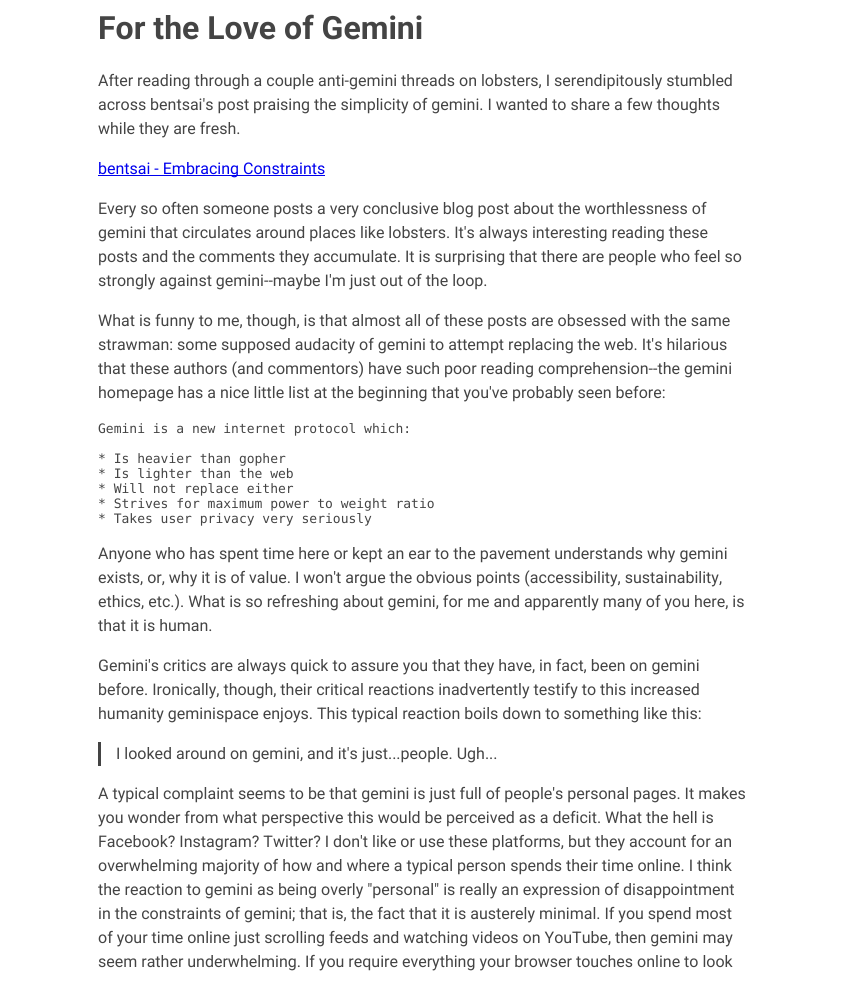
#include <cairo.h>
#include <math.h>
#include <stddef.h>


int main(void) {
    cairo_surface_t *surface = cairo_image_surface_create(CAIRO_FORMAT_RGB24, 846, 987);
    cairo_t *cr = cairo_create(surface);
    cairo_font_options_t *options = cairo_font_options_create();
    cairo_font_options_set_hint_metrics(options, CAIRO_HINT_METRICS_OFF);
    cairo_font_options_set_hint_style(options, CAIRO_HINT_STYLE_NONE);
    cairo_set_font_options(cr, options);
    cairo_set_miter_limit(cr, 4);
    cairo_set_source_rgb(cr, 1, 1, 1);
    cairo_paint(cr);
    cairo_select_font_face(cr, "Roboto", CAIRO_FONT_SLANT_NORMAL, CAIRO_FONT_WEIGHT_BOLD);
    cairo_set_font_size(cr, 32);
    cairo_set_source_rgb(cr, 0.267, 0.267, 0.267);
    cairo_move_to(cr, 98, 39);
    cairo_show_text(cr, "For the Love of Gemini");
    cairo_select_font_face(cr, "Roboto", CAIRO_FONT_SLANT_NORMAL, CAIRO_FONT_WEIGHT_NORMAL);
    cairo_set_font_size(cr, 16);
    cairo_move_to(cr, 98, 86);
    cairo_show_text(cr, "After reading through a couple anti-gemini threads on lobsters, I serendipitously stumbled");
    cairo_move_to(cr, 98, 110);
    cairo_show_text(cr, "across bentsai's post praising the simplicity of gemini. I wanted to share a few thoughts");
    cairo_move_to(cr, 98, 134);
    cairo_show_text(cr, "while they are fresh.");
    cairo_set_source_rgb(cr, 0, 0, 0.933);
    cairo_rectangle(cr, 98, 175, 227, 1);
    cairo_fill(cr);
    cairo_move_to(cr, 98, 174);
    cairo_show_text(cr, "bentsai - Embracing Constraints");
    cairo_set_source_rgb(cr, 0.267, 0.267, 0.267);
    cairo_move_to(cr, 98, 214);
    cairo_show_text(cr, "Every so often someone posts a very conclusive blog post about the worthlessness of");
    cairo_move_to(cr, 98, 238);
    cairo_show_text(cr, "gemini that circulates around places like lobsters. It's always interesting reading these");
    cairo_move_to(cr, 98, 262);
    cairo_show_text(cr, "posts and the comments they accumulate. It is surprising that there are people who feel so");
    cairo_move_to(cr, 98, 286);
    cairo_show_text(cr, "strongly against gemini--maybe I'm just out of the loop.");
    cairo_move_to(cr, 98, 326);
    cairo_show_text(cr, "What is funny to me, though, is that almost all of these posts are obsessed with the same");
    cairo_move_to(cr, 98, 350);
    cairo_show_text(cr, "strawman: some supposed audacity of gemini to attempt replacing the web. It's hilarious");
    cairo_move_to(cr, 98, 374);
    cairo_show_text(cr, "that these authors (and commentors) have such poor reading comprehension--the gemini");
    cairo_move_to(cr, 98, 398);
    cairo_show_text(cr, "homepage has a nice little list at the beginning that you've probably seen before:");
    cairo_select_font_face(cr, "DejaVu Sans Mono", CAIRO_FONT_SLANT_NORMAL, CAIRO_FONT_WEIGHT_NORMAL);
    cairo_set_font_size(cr, 13);
    cairo_move_to(cr, 98, 433);
    cairo_show_text(cr, "Gemini is a new internet protocol which:");
    cairo_move_to(cr, 98, 463);
    cairo_show_text(cr, "* Is heavier than gopher");
    cairo_move_to(cr, 98, 478);
    cairo_show_text(cr, "* Is lighter than the web");
    cairo_move_to(cr, 98, 493);
    cairo_show_text(cr, "* Will not replace either");
    cairo_move_to(cr, 98, 508);
    cairo_show_text(cr, "* Strives for maximum power to weight ratio");
    cairo_move_to(cr, 98, 523);
    cairo_show_text(cr, "* Takes user privacy very seriously");
    cairo_select_font_face(cr, "Roboto", CAIRO_FONT_SLANT_NORMAL, CAIRO_FONT_WEIGHT_NORMAL);
    cairo_set_font_size(cr, 16);
    cairo_move_to(cr, 98, 559);
    cairo_show_text(cr, "Anyone who has spent time here or kept an ear to the pavement understands why gemini");
    cairo_move_to(cr, 98, 583);
    cairo_show_text(cr, "exists, or, why it is of value. I won't argue the obvious points (accessibility, sustainability,");
    cairo_move_to(cr, 98, 607);
    cairo_show_text(cr, "ethics, etc.). What is so refreshing about gemini, for me and apparently many of you here, is");
    cairo_move_to(cr, 98, 631);
    cairo_show_text(cr, "that it is human.");
    cairo_move_to(cr, 98, 671);
    cairo_show_text(cr, "Gemini's critics are always quick to assure you that they have, in fact, been on gemini");
    cairo_move_to(cr, 98, 695);
    cairo_show_text(cr, "before. Ironically, though, their critical reactions inadvertently testify to this increased");
    cairo_move_to(cr, 98, 719);
    cairo_show_text(cr, "humanity geminispace enjoys. This typical reaction boils down to something like this:");
    cairo_rectangle(cr, 98, 742, 3, 24);
    cairo_fill(cr);
    cairo_move_to(cr, 116, 759);
    cairo_show_text(cr, "I looked around on gemini, and it's just...people. Ugh...");
    cairo_move_to(cr, 98, 799);
    cairo_show_text(cr, "A typical complaint seems to be that gemini is just full of people's personal pages. It makes");
    cairo_move_to(cr, 98, 823);
    cairo_show_text(cr, "you wonder from what perspective this would be perceived as a deficit. What the hell is");
    cairo_move_to(cr, 98, 847);
    cairo_show_text(cr, "Facebook? Instagram? Twitter? I don't like or use these platforms, but they account for an");
    cairo_move_to(cr, 98, 871);
    cairo_show_text(cr, "overwhelming majority of how and where a typical person spends their time online. I think");
    cairo_move_to(cr, 98, 895);
    cairo_show_text(cr, "the reaction to gemini as being overly \"personal\" is really an expression of disappointment");
    cairo_move_to(cr, 98, 919);
    cairo_show_text(cr, "in the constraints of gemini; that is, the fact that it is austerely minimal. If you spend most");
    cairo_move_to(cr, 98, 943);
    cairo_show_text(cr, "of your time online just scrolling feeds and watching videos on YouTube, then gemini may");
    cairo_move_to(cr, 98, 967);
    cairo_show_text(cr, "seem rather underwhelming. If you require everything your browser touches online to look");
    cairo_surface_write_to_png(surface, "page.png");
    cairo_font_options_destroy(options);
    cairo_destroy(cr);
    cairo_surface_destroy(surface);
    return 0;
}
